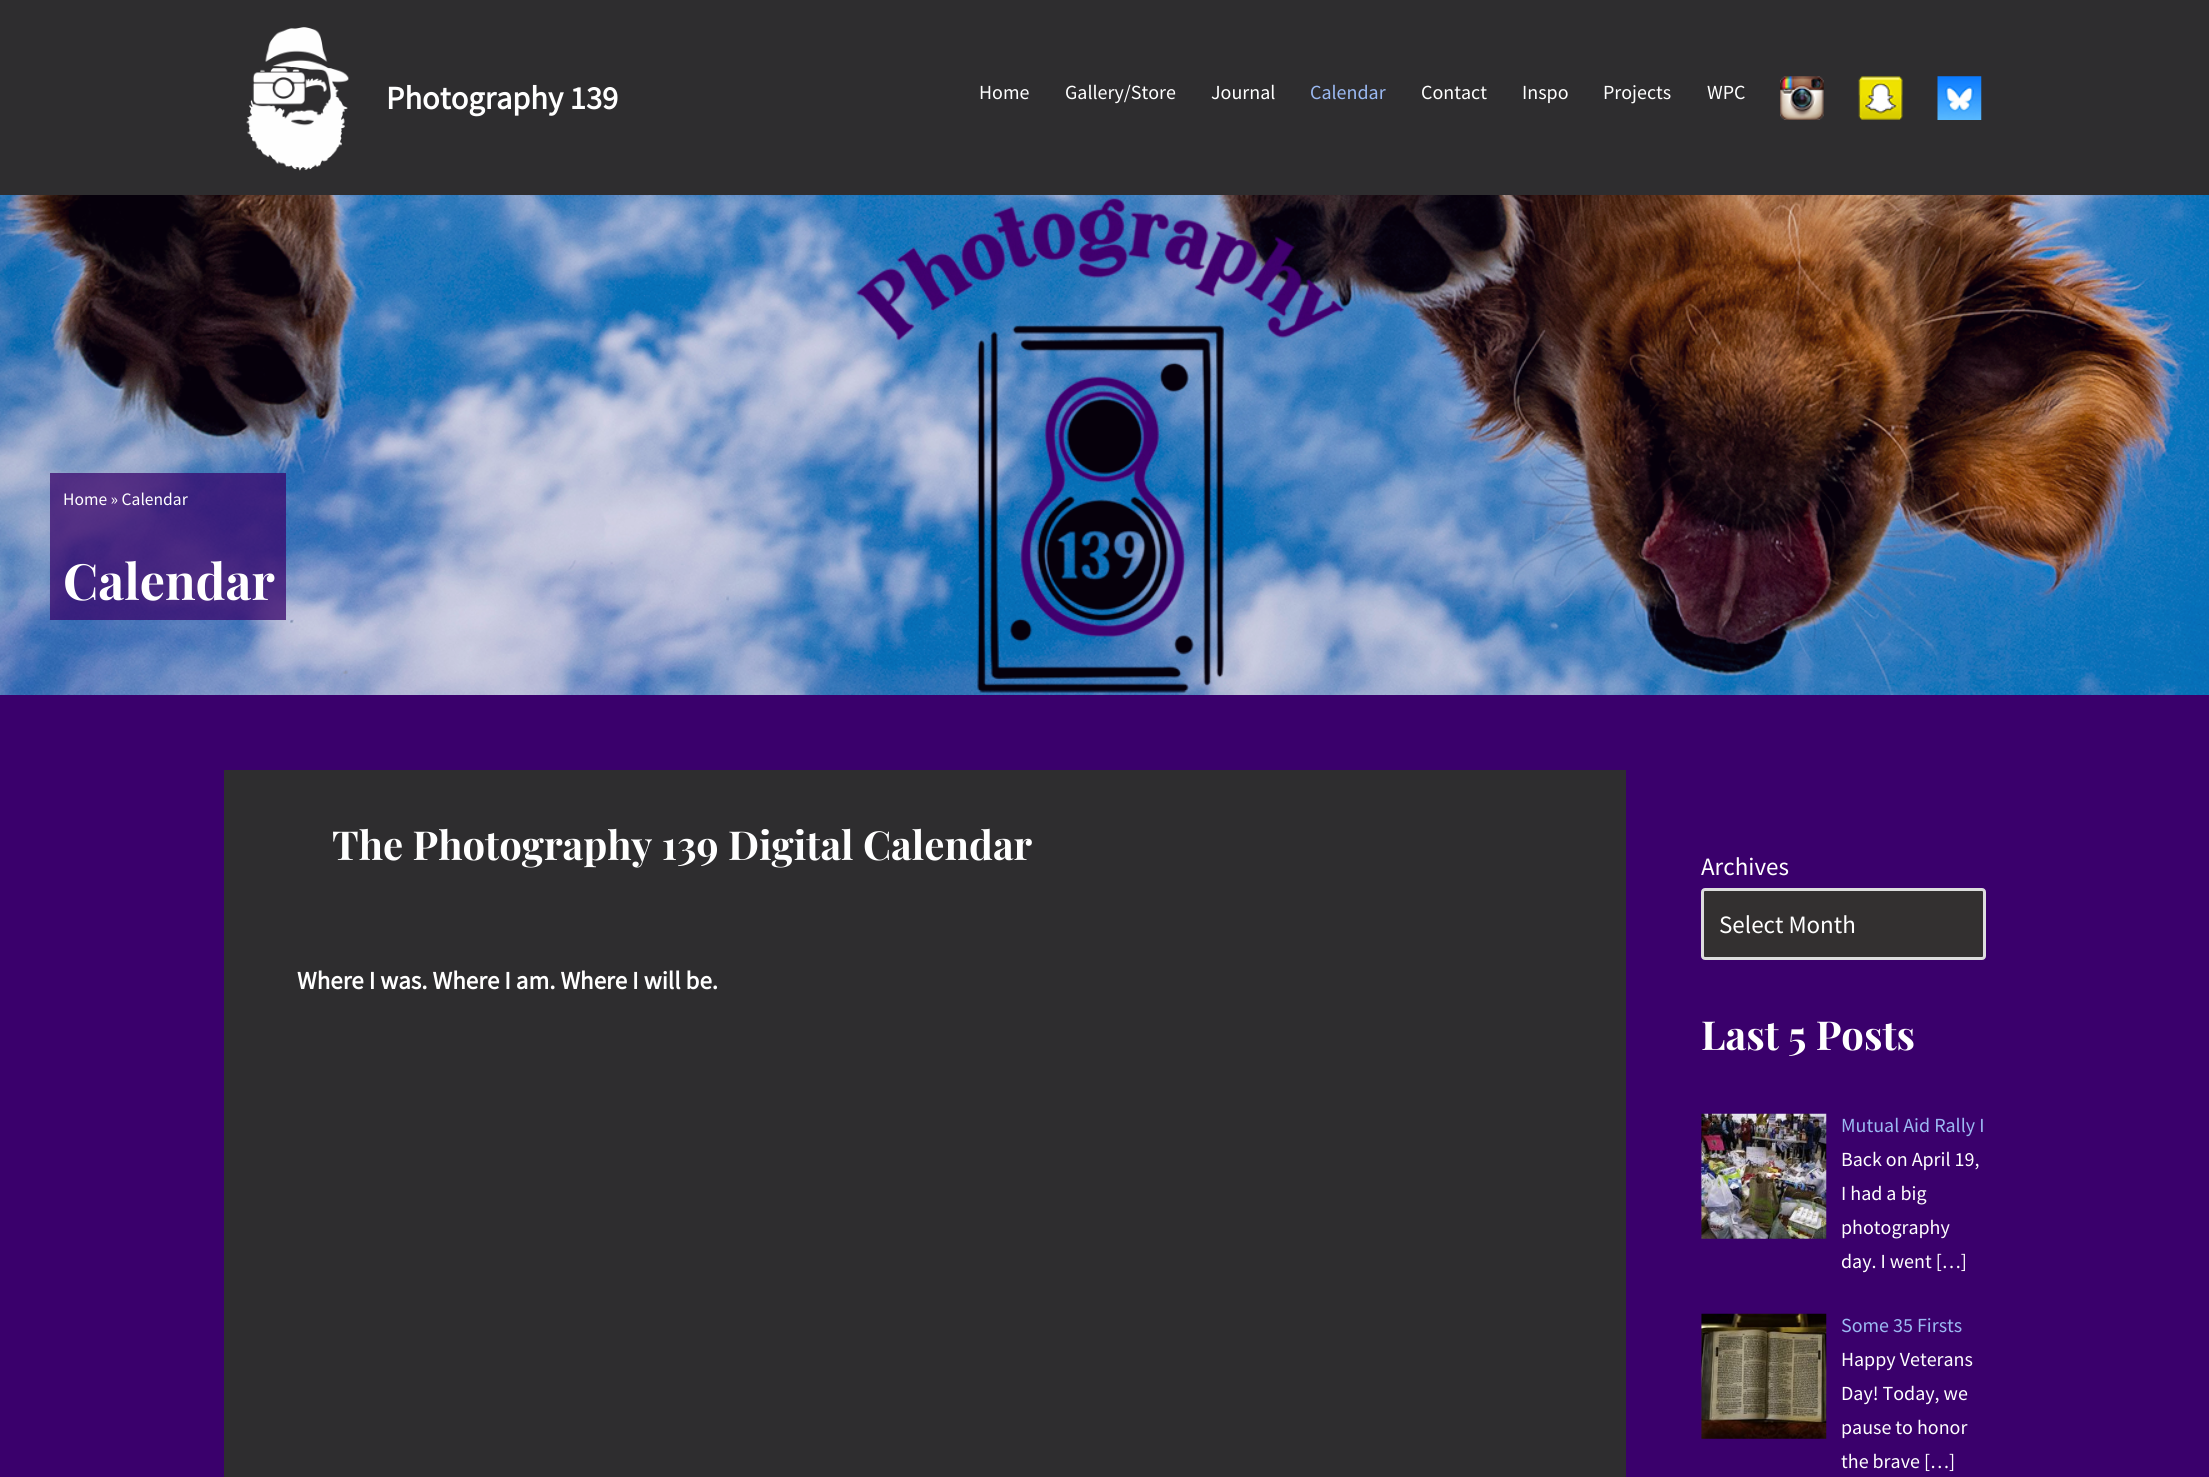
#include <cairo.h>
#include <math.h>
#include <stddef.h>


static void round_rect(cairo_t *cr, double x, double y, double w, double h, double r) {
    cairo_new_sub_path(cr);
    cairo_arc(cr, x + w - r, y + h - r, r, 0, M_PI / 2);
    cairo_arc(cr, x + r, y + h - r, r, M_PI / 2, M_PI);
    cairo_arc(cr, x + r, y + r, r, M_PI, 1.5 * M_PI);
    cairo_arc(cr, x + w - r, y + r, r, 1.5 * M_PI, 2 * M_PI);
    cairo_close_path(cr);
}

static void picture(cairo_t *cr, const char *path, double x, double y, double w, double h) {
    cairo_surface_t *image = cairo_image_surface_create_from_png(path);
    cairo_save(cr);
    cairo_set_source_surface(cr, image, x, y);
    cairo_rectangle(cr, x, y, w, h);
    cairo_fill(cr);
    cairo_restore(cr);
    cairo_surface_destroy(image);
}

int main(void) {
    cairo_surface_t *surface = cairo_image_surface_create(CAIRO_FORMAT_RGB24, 2209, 1477);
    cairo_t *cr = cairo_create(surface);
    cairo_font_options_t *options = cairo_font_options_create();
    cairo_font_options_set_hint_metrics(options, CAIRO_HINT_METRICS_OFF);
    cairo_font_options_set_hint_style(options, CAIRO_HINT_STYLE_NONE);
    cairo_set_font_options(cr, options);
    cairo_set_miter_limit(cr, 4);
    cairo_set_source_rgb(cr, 0.227, 0, 0.424);
    cairo_paint(cr);
    cairo_set_source_rgb(cr, 0.18, 0.176, 0.184);
    cairo_rectangle(cr, 0, 0, 2209, 195);
    cairo_fill(cr);
    picture(cr, "img1.png", 246, 27, 103, 144);
    cairo_select_font_face(cr, "Source Sans Pro", CAIRO_FONT_SLANT_NORMAL, CAIRO_FONT_WEIGHT_BOLD);
    cairo_set_font_size(cr, 32.5);
    cairo_set_source_rgb(cr, 1, 1, 1);
    cairo_move_to(cr, 386, 109);
    cairo_show_text(cr, "Photography 139");
    cairo_select_font_face(cr, "Source Sans Pro", CAIRO_FONT_SLANT_NORMAL, CAIRO_FONT_WEIGHT_NORMAL);
    cairo_set_font_size(cr, 20);
    cairo_move_to(cr, 979, 99);
    cairo_show_text(cr, "Home");
    cairo_move_to(cr, 1065, 99);
    cairo_show_text(cr, "Gallery/Store");
    cairo_move_to(cr, 1211, 99);
    cairo_show_text(cr, "Journal");
    cairo_set_source_rgb(cr, 0.608, 0.725, 0.949);
    cairo_move_to(cr, 1310, 99);
    cairo_show_text(cr, "Calendar");
    cairo_set_source_rgb(cr, 1, 1, 1);
    cairo_move_to(cr, 1421, 99);
    cairo_show_text(cr, "Contact");
    cairo_move_to(cr, 1522, 99);
    cairo_show_text(cr, "Inspo");
    cairo_move_to(cr, 1603, 99);
    cairo_show_text(cr, "Projects");
    cairo_move_to(cr, 1707, 99);
    cairo_show_text(cr, "WPC");
    picture(cr, "img2.png", 1780, 76, 44, 44);
    picture(cr, "img3.png", 1858, 76, 45, 44);
    picture(cr, "img4.png", 1937, 76, 45, 44);
    picture(cr, "img5.png", 0, 195, 2209, 500);
    cairo_set_source_rgba(cr, 0.227, 0.024, 0.42, 0.75);
    cairo_rectangle(cr, 50, 473, 236, 147);
    cairo_fill(cr);
    cairo_set_font_size(cr, 17.5);
    cairo_set_source_rgb(cr, 1, 1, 1);
    cairo_move_to(cr, 63, 505);
    cairo_show_text(cr, "Home » Calendar");
    cairo_select_font_face(cr, "Playfair Display", CAIRO_FONT_SLANT_NORMAL, CAIRO_FONT_WEIGHT_BOLD);
    cairo_set_font_size(cr, 50);
    cairo_move_to(cr, 63, 600);
    cairo_show_text(cr, "Calendar");
    cairo_set_source_rgb(cr, 0.18, 0.176, 0.184);
    cairo_rectangle(cr, 224, 770, 1402, 707);
    cairo_fill(cr);
    cairo_set_font_size(cr, 40);
    cairo_set_source_rgb(cr, 1, 1, 1);
    cairo_move_to(cr, 332, 860);
    cairo_show_text(cr, "The Photography 139 Digital Calendar");
    cairo_select_font_face(cr, "Source Sans Pro", CAIRO_FONT_SLANT_NORMAL, CAIRO_FONT_WEIGHT_BOLD);
    cairo_set_font_size(cr, 25);
    cairo_move_to(cr, 297, 989);
    cairo_show_text(cr, "Where I was. Where I am. Where I will be.");
    cairo_select_font_face(cr, "Source Sans Pro", CAIRO_FONT_SLANT_NORMAL, CAIRO_FONT_WEIGHT_NORMAL);
    cairo_move_to(cr, 1701, 875);
    cairo_show_text(cr, "Archives");
    cairo_set_source_rgb(cr, 0.2, 0.188, 0.188);
    round_rect(cr, 1702.5, 889.5, 282, 69, 2.5);
    cairo_fill_preserve(cr);
    cairo_set_source_rgb(cr, 0.867, 0.867, 0.867);
    cairo_set_line_width(cr, 3);
    cairo_stroke(cr);
    cairo_set_source_rgb(cr, 1, 1, 1);
    cairo_move_to(cr, 1719, 933);
    cairo_show_text(cr, "Select Month");
    cairo_select_font_face(cr, "Playfair Display", CAIRO_FONT_SLANT_NORMAL, CAIRO_FONT_WEIGHT_BOLD);
    cairo_set_font_size(cr, 40);
    cairo_move_to(cr, 1701, 1050);
    cairo_show_text(cr, "Last 5 Posts");
    picture(cr, "img6.png", 1701, 1113, 126, 126);
    cairo_select_font_face(cr, "Source Sans Pro", CAIRO_FONT_SLANT_NORMAL, CAIRO_FONT_WEIGHT_NORMAL);
    cairo_set_font_size(cr, 20);
    cairo_set_source_rgb(cr, 0.608, 0.725, 0.949);
    cairo_move_to(cr, 1841, 1132);
    cairo_show_text(cr, "Mutual Aid Rally I");
    cairo_set_source_rgb(cr, 1, 1, 1);
    cairo_move_to(cr, 1841, 1166);
    cairo_show_text(cr, "Back on April 19,");
    cairo_move_to(cr, 1841, 1200);
    cairo_show_text(cr, "I had a big");
    cairo_move_to(cr, 1841, 1234);
    cairo_show_text(cr, "photography");
    cairo_move_to(cr, 1841, 1268);
    cairo_show_text(cr, "day. I went […]");
    picture(cr, "img7.png", 1701, 1313, 126, 126);
    cairo_set_source_rgb(cr, 0.608, 0.725, 0.949);
    cairo_move_to(cr, 1841, 1332);
    cairo_show_text(cr, "Some 35 Firsts");
    cairo_set_source_rgb(cr, 1, 1, 1);
    cairo_move_to(cr, 1841, 1366);
    cairo_show_text(cr, "Happy Veterans");
    cairo_move_to(cr, 1841, 1400);
    cairo_show_text(cr, "Day! Today, we");
    cairo_move_to(cr, 1841, 1434);
    cairo_show_text(cr, "pause to honor");
    cairo_move_to(cr, 1841, 1468);
    cairo_show_text(cr, "the brave […]");
    cairo_surface_write_to_png(surface, "page.png");
    cairo_font_options_destroy(options);
    cairo_destroy(cr);
    cairo_surface_destroy(surface);
    return 0;
}
